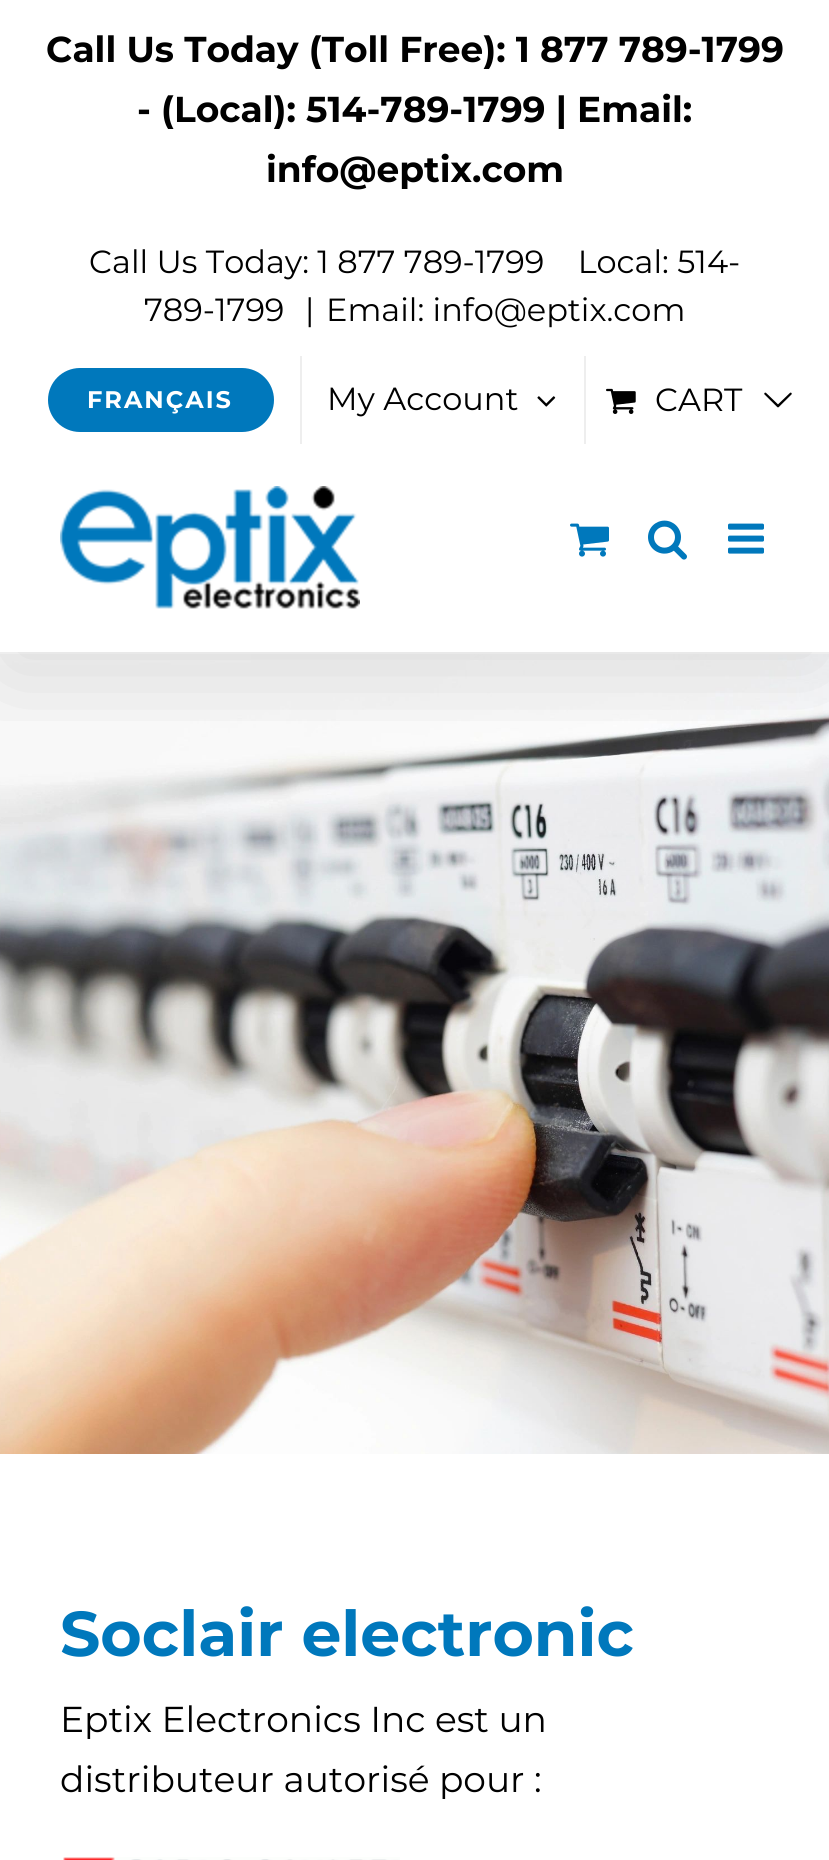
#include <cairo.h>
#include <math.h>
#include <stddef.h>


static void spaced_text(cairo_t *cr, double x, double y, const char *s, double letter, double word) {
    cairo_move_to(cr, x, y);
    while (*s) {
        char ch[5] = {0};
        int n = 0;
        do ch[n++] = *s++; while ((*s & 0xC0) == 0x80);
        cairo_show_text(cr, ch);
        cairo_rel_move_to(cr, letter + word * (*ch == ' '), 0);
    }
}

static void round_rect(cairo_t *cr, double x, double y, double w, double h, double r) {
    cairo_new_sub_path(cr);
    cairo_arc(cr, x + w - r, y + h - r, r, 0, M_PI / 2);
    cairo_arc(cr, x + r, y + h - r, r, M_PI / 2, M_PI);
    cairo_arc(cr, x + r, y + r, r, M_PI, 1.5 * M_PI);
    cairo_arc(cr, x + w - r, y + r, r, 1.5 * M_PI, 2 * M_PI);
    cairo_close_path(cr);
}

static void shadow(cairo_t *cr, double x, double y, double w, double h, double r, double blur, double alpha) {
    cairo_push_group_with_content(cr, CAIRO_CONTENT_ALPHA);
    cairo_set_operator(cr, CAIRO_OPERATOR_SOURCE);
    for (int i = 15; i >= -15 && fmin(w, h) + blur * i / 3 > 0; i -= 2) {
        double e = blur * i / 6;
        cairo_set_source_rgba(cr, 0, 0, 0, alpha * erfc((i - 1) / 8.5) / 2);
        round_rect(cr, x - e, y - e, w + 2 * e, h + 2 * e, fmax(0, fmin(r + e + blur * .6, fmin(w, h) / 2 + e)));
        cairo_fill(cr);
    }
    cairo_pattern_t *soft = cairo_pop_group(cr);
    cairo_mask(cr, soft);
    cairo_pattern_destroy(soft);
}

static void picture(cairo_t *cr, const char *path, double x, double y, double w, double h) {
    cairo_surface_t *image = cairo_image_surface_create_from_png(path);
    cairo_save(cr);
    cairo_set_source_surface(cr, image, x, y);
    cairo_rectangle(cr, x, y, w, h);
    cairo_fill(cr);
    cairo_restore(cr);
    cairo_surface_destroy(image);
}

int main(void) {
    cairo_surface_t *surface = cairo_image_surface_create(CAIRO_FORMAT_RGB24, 829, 1860);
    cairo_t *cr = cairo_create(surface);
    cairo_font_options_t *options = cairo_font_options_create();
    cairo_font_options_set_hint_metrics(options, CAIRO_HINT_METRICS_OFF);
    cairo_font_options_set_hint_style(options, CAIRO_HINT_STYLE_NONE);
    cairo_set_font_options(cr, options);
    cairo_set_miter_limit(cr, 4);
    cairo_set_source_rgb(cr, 1, 1, 1);
    cairo_paint(cr);
    picture(cr, "img8.png", 0, 654, 829, 800);
    cairo_save(cr);
    cairo_rectangle(cr, 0, 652, 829, 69);
    cairo_clip(cr);
    cairo_set_source_rgb(cr, 0, 0, 0);
    shadow(cr, 4, 244, 822, 424, 0, 50, 0.14);
    cairo_restore(cr);
    cairo_set_source_rgb(cr, 1, 1, 1);
    cairo_rectangle(cr, 0, 171, 829, 49);
    cairo_fill(cr);
    cairo_select_font_face(cr, "Montserrat", CAIRO_FONT_SLANT_NORMAL, CAIRO_FONT_WEIGHT_BOLD);
    cairo_set_font_size(cr, 36);
    cairo_set_source_rgb(cr, 0, 0, 0);
    cairo_move_to(cr, 46, 62);
    cairo_show_text(cr, "Call Us Today (Toll Free): 1 877 789-1799");
    cairo_move_to(cr, 137, 122);
    cairo_show_text(cr, "- (Local): 514-789-1799 | Email:");
    cairo_move_to(cr, 266, 182);
    cairo_show_text(cr, "info@eptix.com");
    cairo_select_font_face(cr, "Montserrat", CAIRO_FONT_SLANT_NORMAL, CAIRO_FONT_WEIGHT_NORMAL);
    cairo_set_font_size(cr, 32);
    cairo_move_to(cr, 89, 273);
    cairo_show_text(cr, "Call Us Today: 1 877 789-1799    Local: 514-");
    cairo_move_to(cr, 144, 321);
    cairo_show_text(cr, "789-1799");
    cairo_move_to(cr, 305, 321);
    cairo_show_text(cr, "|");
    cairo_move_to(cr, 326, 321);
    cairo_show_text(cr, "Email: info@eptix.com");
    cairo_set_source_rgb(cr, 0, 0.471, 0.737);
    round_rect(cr, 48, 368, 226, 64, 32);
    cairo_fill(cr);
    cairo_select_font_face(cr, "Montserrat", CAIRO_FONT_SLANT_NORMAL, CAIRO_FONT_WEIGHT_BOLD);
    cairo_set_font_size(cr, 24);
    cairo_set_source_rgb(cr, 1, 1, 1);
    spaced_text(cr, 87, 408, "FRANÇAIS", 2, 0);
    cairo_set_source_rgb(cr, 0.933, 0.933, 0.933);
    cairo_rectangle(cr, 300, 356, 2, 88);
    cairo_fill(cr);
    cairo_select_font_face(cr, "Montserrat", CAIRO_FONT_SLANT_NORMAL, CAIRO_FONT_WEIGHT_NORMAL);
    cairo_set_font_size(cr, 32);
    cairo_set_source_rgb(cr, 0, 0, 0);
    cairo_move_to(cr, 327, 410);
    cairo_show_text(cr, "My Account");
    picture(cr, "img1.png", 537, 396, 19, 11);
    cairo_set_source_rgb(cr, 0.933, 0.933, 0.933);
    cairo_rectangle(cr, 584, 356, 2, 88);
    cairo_fill(cr);
    picture(cr, "img2.png", 606, 388, 30, 26);
    cairo_set_source_rgb(cr, 0, 0, 0);
    cairo_move_to(cr, 655, 411);
    cairo_show_text(cr, "CART");
    picture(cr, "img3.png", 764, 392, 28, 16);
    picture(cr, "img4.png", 60, 486, 300, 123);
    picture(cr, "img5.png", 570, 523, 39, 34);
    picture(cr, "img6.png", 648, 520, 39, 40);
    picture(cr, "img7.png", 728, 523, 36, 31);
    cairo_select_font_face(cr, "Montserrat", CAIRO_FONT_SLANT_NORMAL, CAIRO_FONT_WEIGHT_BOLD);
    cairo_set_font_size(cr, 63.25);
    cairo_set_source_rgb(cr, 0, 0.471, 0.737);
    cairo_move_to(cr, 60, 1656);
    cairo_show_text(cr, "Soclair electronic");
    cairo_select_font_face(cr, "Montserrat", CAIRO_FONT_SLANT_NORMAL, CAIRO_FONT_WEIGHT_NORMAL);
    cairo_set_font_size(cr, 36);
    cairo_set_source_rgb(cr, 0, 0, 0);
    cairo_move_to(cr, 60, 1732);
    cairo_show_text(cr, "Eptix Electronics Inc est un");
    cairo_move_to(cr, 60, 1792);
    cairo_show_text(cr, "distributeur autorisé pour :");
    picture(cr, "img9.png", 63, 1857, 337, 3);
    cairo_surface_write_to_png(surface, "page.png");
    cairo_font_options_destroy(options);
    cairo_destroy(cr);
    cairo_surface_destroy(surface);
    return 0;
}
